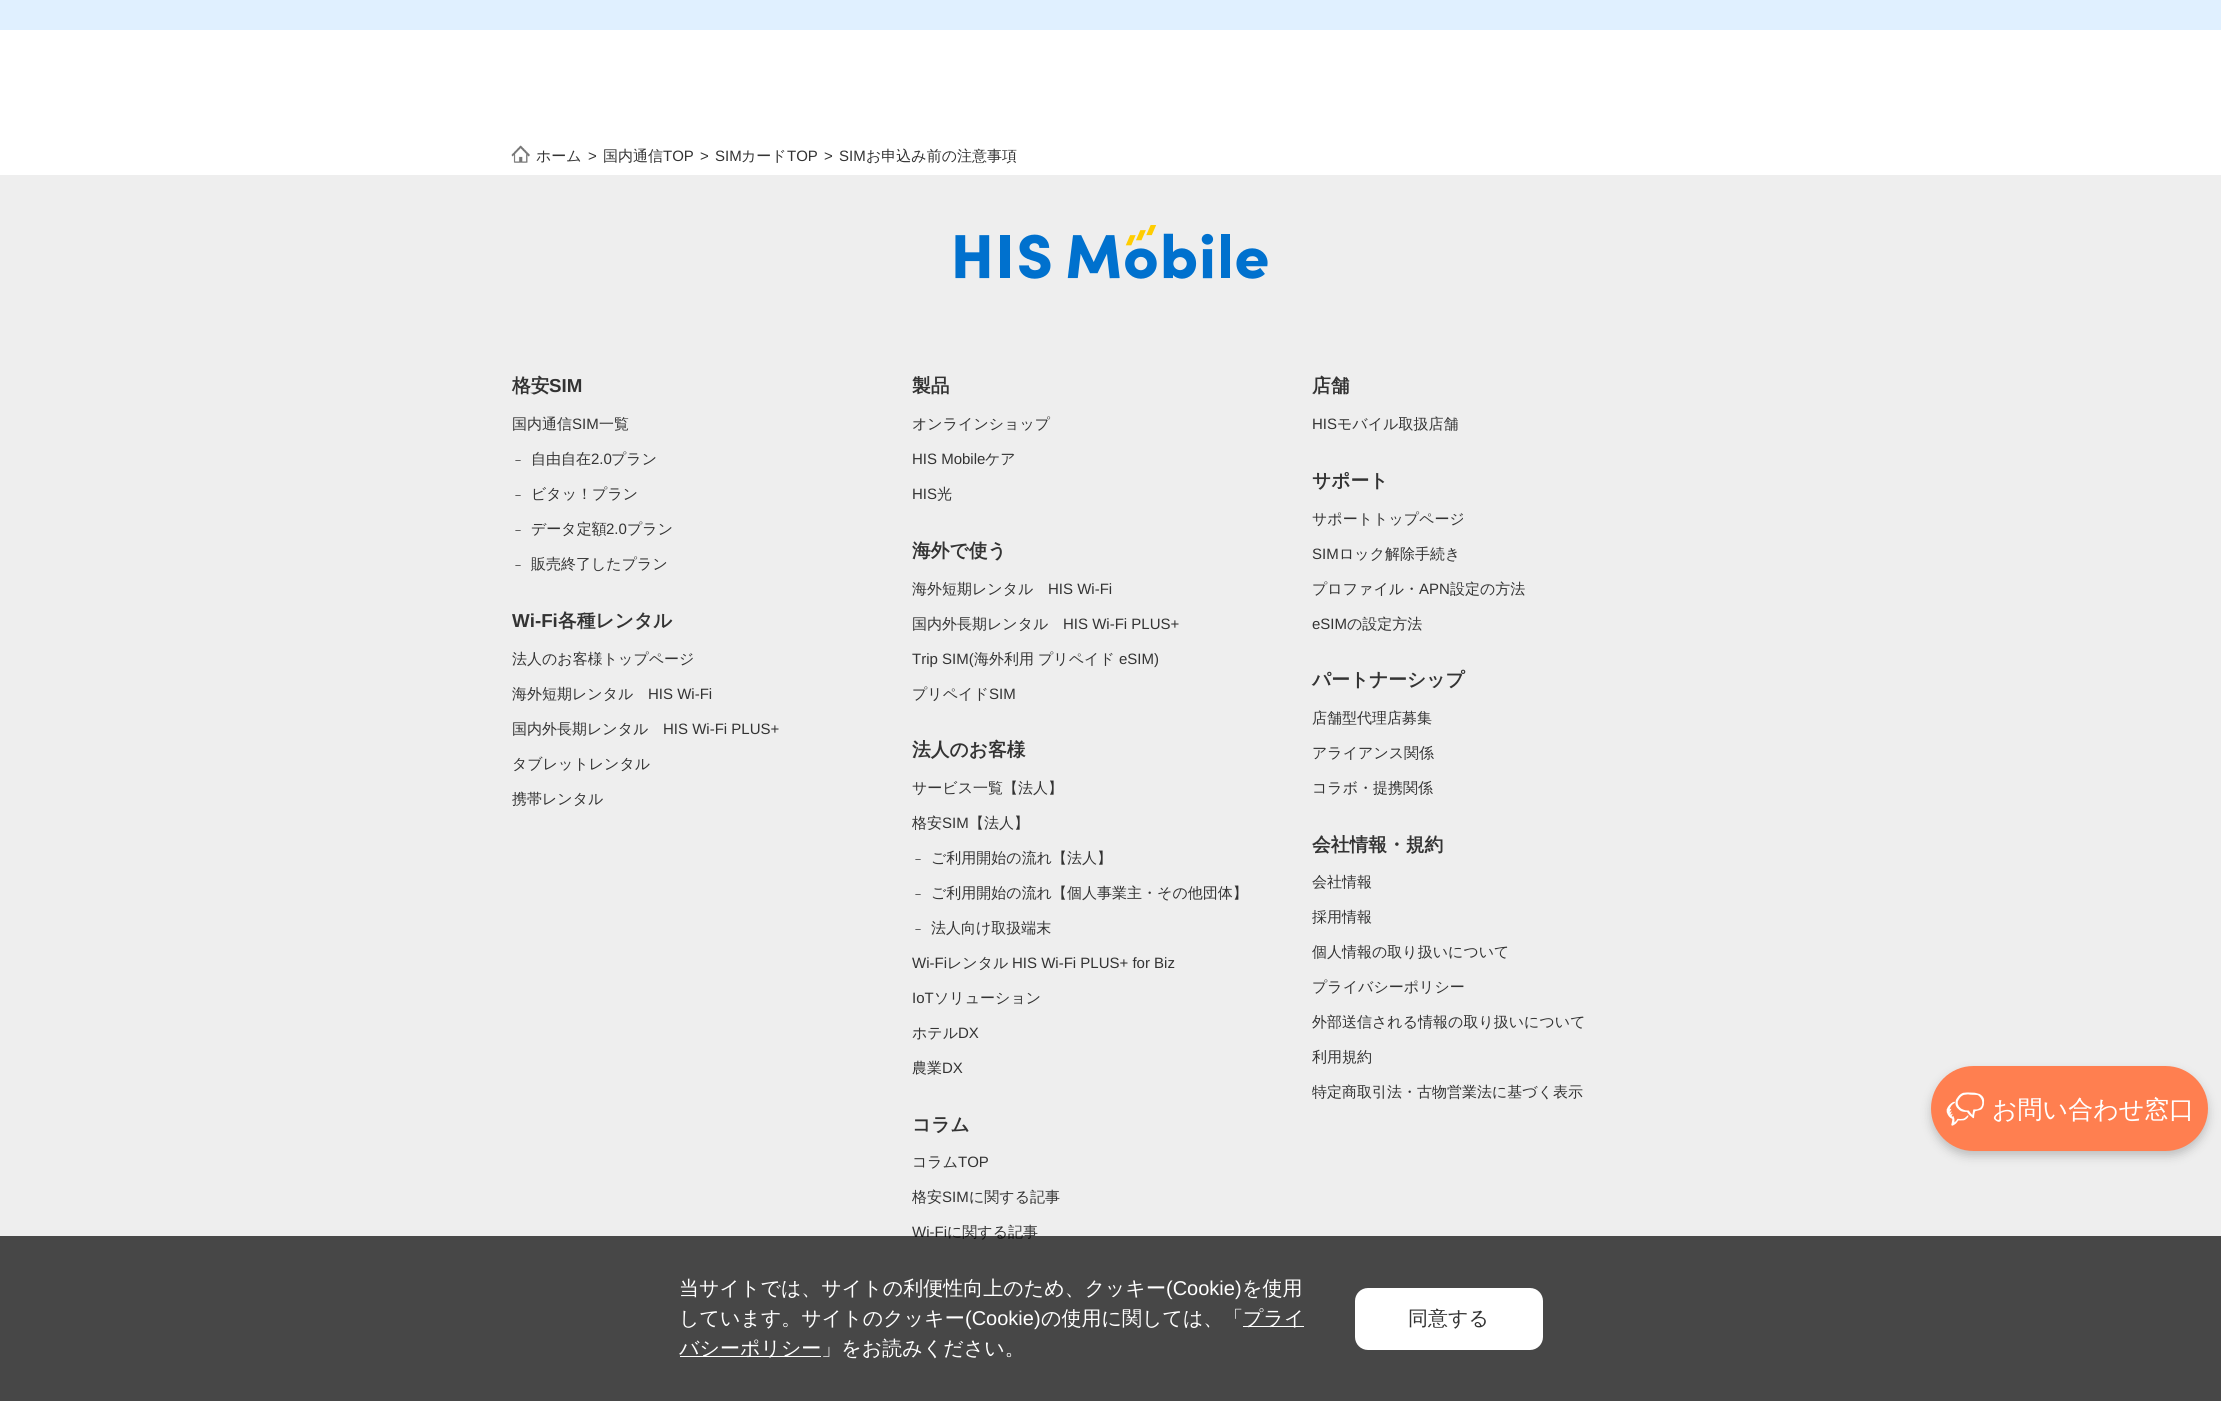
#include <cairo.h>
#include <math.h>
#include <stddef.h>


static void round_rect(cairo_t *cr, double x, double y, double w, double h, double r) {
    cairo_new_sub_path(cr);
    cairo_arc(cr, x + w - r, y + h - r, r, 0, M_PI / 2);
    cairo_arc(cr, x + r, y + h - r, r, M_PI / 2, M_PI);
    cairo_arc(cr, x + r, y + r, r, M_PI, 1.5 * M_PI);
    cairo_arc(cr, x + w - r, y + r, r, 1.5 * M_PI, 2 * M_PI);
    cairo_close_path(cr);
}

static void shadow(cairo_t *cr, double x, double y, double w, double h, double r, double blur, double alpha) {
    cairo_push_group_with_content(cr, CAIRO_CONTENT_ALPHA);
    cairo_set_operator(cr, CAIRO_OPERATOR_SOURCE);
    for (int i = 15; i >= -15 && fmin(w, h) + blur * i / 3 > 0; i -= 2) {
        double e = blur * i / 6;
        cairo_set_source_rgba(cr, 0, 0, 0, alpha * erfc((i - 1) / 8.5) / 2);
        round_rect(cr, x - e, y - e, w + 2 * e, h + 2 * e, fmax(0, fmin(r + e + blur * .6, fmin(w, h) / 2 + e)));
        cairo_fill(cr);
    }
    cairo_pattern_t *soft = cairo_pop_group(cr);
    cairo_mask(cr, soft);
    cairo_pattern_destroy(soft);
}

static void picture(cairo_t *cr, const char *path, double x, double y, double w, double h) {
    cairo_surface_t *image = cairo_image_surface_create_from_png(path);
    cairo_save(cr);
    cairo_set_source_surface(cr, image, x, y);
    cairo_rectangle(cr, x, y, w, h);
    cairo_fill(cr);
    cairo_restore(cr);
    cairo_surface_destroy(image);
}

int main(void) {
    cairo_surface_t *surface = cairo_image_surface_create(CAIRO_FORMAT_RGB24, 2221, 1401);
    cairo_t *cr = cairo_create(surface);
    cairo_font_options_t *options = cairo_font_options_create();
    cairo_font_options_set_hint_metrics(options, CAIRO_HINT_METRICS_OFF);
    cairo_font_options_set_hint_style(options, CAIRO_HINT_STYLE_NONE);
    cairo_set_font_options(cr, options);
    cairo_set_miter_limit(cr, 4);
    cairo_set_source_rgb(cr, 0.878, 0.941, 1);
    cairo_paint(cr);
    cairo_set_source_rgb(cr, 0.933, 0.933, 0.933);
    cairo_rectangle(cr, 0, 175, 2221, 1226);
    cairo_fill(cr);
    cairo_set_source_rgb(cr, 1, 1, 1);
    cairo_rectangle(cr, 0, 30, 2221, 145);
    cairo_fill(cr);
    picture(cr, "img1.png", 511, 145, 19, 18);
    cairo_select_font_face(cr, "WenQuanYi Zen Hei Medium", CAIRO_FONT_SLANT_NORMAL, CAIRO_FONT_WEIGHT_NORMAL);
    cairo_set_font_size(cr, 15);
    cairo_set_source_rgb(cr, 0.2, 0.2, 0.2);
    cairo_move_to(cr, 536, 161);
    cairo_show_text(cr, "ホーム");
    cairo_select_font_face(cr, "Liberation Sans", CAIRO_FONT_SLANT_NORMAL, CAIRO_FONT_WEIGHT_NORMAL);
    cairo_move_to(cr, 588, 161);
    cairo_show_text(cr, ">");
    cairo_select_font_face(cr, "WenQuanYi Zen Hei Medium", CAIRO_FONT_SLANT_NORMAL, CAIRO_FONT_WEIGHT_NORMAL);
    cairo_move_to(cr, 603, 161);
    cairo_show_text(cr, "国内通信");
    cairo_select_font_face(cr, "Liberation Sans", CAIRO_FONT_SLANT_NORMAL, CAIRO_FONT_WEIGHT_NORMAL);
    cairo_move_to(cr, 663, 161);
    cairo_show_text(cr, "TOP");
    cairo_move_to(cr, 700, 161);
    cairo_show_text(cr, ">");
    cairo_move_to(cr, 715, 161);
    cairo_show_text(cr, "SIM");
    cairo_select_font_face(cr, "WenQuanYi Zen Hei Medium", CAIRO_FONT_SLANT_NORMAL, CAIRO_FONT_WEIGHT_NORMAL);
    cairo_move_to(cr, 741, 161);
    cairo_show_text(cr, "カード");
    cairo_select_font_face(cr, "Liberation Sans", CAIRO_FONT_SLANT_NORMAL, CAIRO_FONT_WEIGHT_NORMAL);
    cairo_move_to(cr, 787, 161);
    cairo_show_text(cr, "TOP");
    cairo_move_to(cr, 824, 161);
    cairo_show_text(cr, ">");
    cairo_move_to(cr, 839, 161);
    cairo_show_text(cr, "SIM");
    cairo_select_font_face(cr, "WenQuanYi Zen Hei Medium", CAIRO_FONT_SLANT_NORMAL, CAIRO_FONT_WEIGHT_NORMAL);
    cairo_move_to(cr, 866, 161);
    cairo_show_text(cr, "お申込み前の注意事項");
    picture(cr, "img2.png", 955, 225, 313, 54);
    cairo_select_font_face(cr, "WenQuanYi Zen Hei", CAIRO_FONT_SLANT_NORMAL, CAIRO_FONT_WEIGHT_BOLD);
    cairo_set_font_size(cr, 18.75);
    cairo_move_to(cr, 512, 392);
    cairo_show_text(cr, "格安");
    cairo_select_font_face(cr, "Liberation Sans", CAIRO_FONT_SLANT_NORMAL, CAIRO_FONT_WEIGHT_BOLD);
    cairo_move_to(cr, 549, 392);
    cairo_show_text(cr, "SIM");
    cairo_select_font_face(cr, "WenQuanYi Zen Hei Medium", CAIRO_FONT_SLANT_NORMAL, CAIRO_FONT_WEIGHT_NORMAL);
    cairo_set_font_size(cr, 15);
    cairo_move_to(cr, 512, 429);
    cairo_show_text(cr, "国内通信");
    cairo_select_font_face(cr, "Liberation Sans", CAIRO_FONT_SLANT_NORMAL, CAIRO_FONT_WEIGHT_NORMAL);
    cairo_move_to(cr, 572, 429);
    cairo_show_text(cr, "SIM");
    cairo_select_font_face(cr, "WenQuanYi Zen Hei Medium", CAIRO_FONT_SLANT_NORMAL, CAIRO_FONT_WEIGHT_NORMAL);
    cairo_move_to(cr, 599, 429);
    cairo_show_text(cr, "一覧");
    cairo_set_font_size(cr, 12);
    cairo_move_to(cr, 512, 464);
    cairo_show_text(cr, "－");
    cairo_set_font_size(cr, 15);
    cairo_move_to(cr, 531, 464);
    cairo_show_text(cr, "自由自在");
    cairo_select_font_face(cr, "Liberation Sans", CAIRO_FONT_SLANT_NORMAL, CAIRO_FONT_WEIGHT_NORMAL);
    cairo_move_to(cr, 591, 464);
    cairo_show_text(cr, "2.0");
    cairo_select_font_face(cr, "WenQuanYi Zen Hei Medium", CAIRO_FONT_SLANT_NORMAL, CAIRO_FONT_WEIGHT_NORMAL);
    cairo_move_to(cr, 611, 464);
    cairo_show_text(cr, "プラン");
    cairo_set_font_size(cr, 12);
    cairo_move_to(cr, 512, 499);
    cairo_show_text(cr, "－");
    cairo_set_font_size(cr, 15);
    cairo_move_to(cr, 531, 499);
    cairo_show_text(cr, "ビタッ！プラン");
    cairo_set_font_size(cr, 12);
    cairo_move_to(cr, 512, 534);
    cairo_show_text(cr, "－");
    cairo_set_font_size(cr, 15);
    cairo_move_to(cr, 531, 534);
    cairo_show_text(cr, "データ定額");
    cairo_select_font_face(cr, "Liberation Sans", CAIRO_FONT_SLANT_NORMAL, CAIRO_FONT_WEIGHT_NORMAL);
    cairo_move_to(cr, 606, 534);
    cairo_show_text(cr, "2.0");
    cairo_select_font_face(cr, "WenQuanYi Zen Hei Medium", CAIRO_FONT_SLANT_NORMAL, CAIRO_FONT_WEIGHT_NORMAL);
    cairo_move_to(cr, 627, 534);
    cairo_show_text(cr, "プラン");
    cairo_set_font_size(cr, 12);
    cairo_move_to(cr, 512, 569);
    cairo_show_text(cr, "－");
    cairo_set_font_size(cr, 15);
    cairo_move_to(cr, 531, 569);
    cairo_show_text(cr, "販売終了したプラン");
    cairo_select_font_face(cr, "Liberation Sans", CAIRO_FONT_SLANT_NORMAL, CAIRO_FONT_WEIGHT_BOLD);
    cairo_set_font_size(cr, 18.75);
    cairo_move_to(cr, 512, 627);
    cairo_show_text(cr, "Wi-Fi");
    cairo_select_font_face(cr, "WenQuanYi Zen Hei", CAIRO_FONT_SLANT_NORMAL, CAIRO_FONT_WEIGHT_BOLD);
    cairo_move_to(cr, 558, 627);
    cairo_show_text(cr, "各種レンタル");
    cairo_select_font_face(cr, "WenQuanYi Zen Hei Medium", CAIRO_FONT_SLANT_NORMAL, CAIRO_FONT_WEIGHT_NORMAL);
    cairo_set_font_size(cr, 15);
    cairo_move_to(cr, 512, 664);
    cairo_show_text(cr, "法人のお客様トップページ");
    cairo_move_to(cr, 512, 699);
    cairo_show_text(cr, "海外短期レンタル");
    cairo_select_font_face(cr, "Liberation Sans", CAIRO_FONT_SLANT_NORMAL, CAIRO_FONT_WEIGHT_NORMAL);
    cairo_move_to(cr, 648, 699);
    cairo_show_text(cr, "HIS Wi-Fi");
    cairo_select_font_face(cr, "WenQuanYi Zen Hei Medium", CAIRO_FONT_SLANT_NORMAL, CAIRO_FONT_WEIGHT_NORMAL);
    cairo_move_to(cr, 512, 734);
    cairo_show_text(cr, "国内外長期レンタル");
    cairo_select_font_face(cr, "Liberation Sans", CAIRO_FONT_SLANT_NORMAL, CAIRO_FONT_WEIGHT_NORMAL);
    cairo_move_to(cr, 663, 734);
    cairo_show_text(cr, "HIS Wi-Fi PLUS+");
    cairo_select_font_face(cr, "WenQuanYi Zen Hei Medium", CAIRO_FONT_SLANT_NORMAL, CAIRO_FONT_WEIGHT_NORMAL);
    cairo_move_to(cr, 512, 769);
    cairo_show_text(cr, "タブレットレンタル");
    cairo_move_to(cr, 512, 804);
    cairo_show_text(cr, "携帯レンタル");
    cairo_select_font_face(cr, "WenQuanYi Zen Hei", CAIRO_FONT_SLANT_NORMAL, CAIRO_FONT_WEIGHT_BOLD);
    cairo_set_font_size(cr, 18.75);
    cairo_move_to(cr, 912, 392);
    cairo_show_text(cr, "製品");
    cairo_select_font_face(cr, "WenQuanYi Zen Hei Medium", CAIRO_FONT_SLANT_NORMAL, CAIRO_FONT_WEIGHT_NORMAL);
    cairo_set_font_size(cr, 15);
    cairo_move_to(cr, 912, 429);
    cairo_show_text(cr, "オンラインショップ");
    cairo_select_font_face(cr, "Liberation Sans", CAIRO_FONT_SLANT_NORMAL, CAIRO_FONT_WEIGHT_NORMAL);
    cairo_move_to(cr, 912, 464);
    cairo_show_text(cr, "HIS Mobile");
    cairo_select_font_face(cr, "WenQuanYi Zen Hei Medium", CAIRO_FONT_SLANT_NORMAL, CAIRO_FONT_WEIGHT_NORMAL);
    cairo_move_to(cr, 985, 464);
    cairo_show_text(cr, "ケア");
    cairo_select_font_face(cr, "Liberation Sans", CAIRO_FONT_SLANT_NORMAL, CAIRO_FONT_WEIGHT_NORMAL);
    cairo_move_to(cr, 912, 499);
    cairo_show_text(cr, "HIS");
    cairo_select_font_face(cr, "WenQuanYi Zen Hei Medium", CAIRO_FONT_SLANT_NORMAL, CAIRO_FONT_WEIGHT_NORMAL);
    cairo_move_to(cr, 937, 499);
    cairo_show_text(cr, "光");
    cairo_select_font_face(cr, "WenQuanYi Zen Hei", CAIRO_FONT_SLANT_NORMAL, CAIRO_FONT_WEIGHT_BOLD);
    cairo_set_font_size(cr, 18.75);
    cairo_move_to(cr, 912, 557);
    cairo_show_text(cr, "海外で使う");
    cairo_select_font_face(cr, "WenQuanYi Zen Hei Medium", CAIRO_FONT_SLANT_NORMAL, CAIRO_FONT_WEIGHT_NORMAL);
    cairo_set_font_size(cr, 15);
    cairo_move_to(cr, 912, 594);
    cairo_show_text(cr, "海外短期レンタル");
    cairo_select_font_face(cr, "Liberation Sans", CAIRO_FONT_SLANT_NORMAL, CAIRO_FONT_WEIGHT_NORMAL);
    cairo_move_to(cr, 1048, 594);
    cairo_show_text(cr, "HIS Wi-Fi");
    cairo_select_font_face(cr, "WenQuanYi Zen Hei Medium", CAIRO_FONT_SLANT_NORMAL, CAIRO_FONT_WEIGHT_NORMAL);
    cairo_move_to(cr, 912, 629);
    cairo_show_text(cr, "国内外長期レンタル");
    cairo_select_font_face(cr, "Liberation Sans", CAIRO_FONT_SLANT_NORMAL, CAIRO_FONT_WEIGHT_NORMAL);
    cairo_move_to(cr, 1063, 629);
    cairo_show_text(cr, "HIS Wi-Fi PLUS+");
    cairo_move_to(cr, 912, 664);
    cairo_show_text(cr, "Trip SIM(");
    cairo_select_font_face(cr, "WenQuanYi Zen Hei Medium", CAIRO_FONT_SLANT_NORMAL, CAIRO_FONT_WEIGHT_NORMAL);
    cairo_move_to(cr, 974, 664);
    cairo_show_text(cr, "海外利用");
    cairo_move_to(cr, 1038, 664);
    cairo_show_text(cr, "プリペイド");
    cairo_select_font_face(cr, "Liberation Sans", CAIRO_FONT_SLANT_NORMAL, CAIRO_FONT_WEIGHT_NORMAL);
    cairo_move_to(cr, 1119, 664);
    cairo_show_text(cr, "eSIM)");
    cairo_select_font_face(cr, "WenQuanYi Zen Hei Medium", CAIRO_FONT_SLANT_NORMAL, CAIRO_FONT_WEIGHT_NORMAL);
    cairo_move_to(cr, 912, 699);
    cairo_show_text(cr, "プリペイド");
    cairo_select_font_face(cr, "Liberation Sans", CAIRO_FONT_SLANT_NORMAL, CAIRO_FONT_WEIGHT_NORMAL);
    cairo_move_to(cr, 989, 699);
    cairo_show_text(cr, "SIM");
    cairo_select_font_face(cr, "WenQuanYi Zen Hei", CAIRO_FONT_SLANT_NORMAL, CAIRO_FONT_WEIGHT_BOLD);
    cairo_set_font_size(cr, 18.75);
    cairo_move_to(cr, 912, 756);
    cairo_show_text(cr, "法人のお客様");
    cairo_select_font_face(cr, "WenQuanYi Zen Hei Medium", CAIRO_FONT_SLANT_NORMAL, CAIRO_FONT_WEIGHT_NORMAL);
    cairo_set_font_size(cr, 15);
    cairo_move_to(cr, 912, 793);
    cairo_show_text(cr, "サービス一覧【法人】");
    cairo_move_to(cr, 912, 828);
    cairo_show_text(cr, "格安");
    cairo_select_font_face(cr, "Liberation Sans", CAIRO_FONT_SLANT_NORMAL, CAIRO_FONT_WEIGHT_NORMAL);
    cairo_move_to(cr, 942, 828);
    cairo_show_text(cr, "SIM");
    cairo_select_font_face(cr, "WenQuanYi Zen Hei Medium", CAIRO_FONT_SLANT_NORMAL, CAIRO_FONT_WEIGHT_NORMAL);
    cairo_move_to(cr, 969, 828);
    cairo_show_text(cr, "【法人】");
    cairo_set_font_size(cr, 12);
    cairo_move_to(cr, 912, 863);
    cairo_show_text(cr, "－");
    cairo_set_font_size(cr, 15);
    cairo_move_to(cr, 931, 863);
    cairo_show_text(cr, "ご利用開始の流れ【法人】");
    cairo_set_font_size(cr, 12);
    cairo_move_to(cr, 912, 898);
    cairo_show_text(cr, "－");
    cairo_set_font_size(cr, 15);
    cairo_move_to(cr, 931, 898);
    cairo_show_text(cr, "ご利用開始の流れ【個人事業主・その他団体】");
    cairo_set_font_size(cr, 12);
    cairo_move_to(cr, 912, 933);
    cairo_show_text(cr, "－");
    cairo_set_font_size(cr, 15);
    cairo_move_to(cr, 931, 933);
    cairo_show_text(cr, "法人向け取扱端末");
    cairo_select_font_face(cr, "Liberation Sans", CAIRO_FONT_SLANT_NORMAL, CAIRO_FONT_WEIGHT_NORMAL);
    cairo_move_to(cr, 912, 968);
    cairo_show_text(cr, "Wi-Fi");
    cairo_select_font_face(cr, "WenQuanYi Zen Hei Medium", CAIRO_FONT_SLANT_NORMAL, CAIRO_FONT_WEIGHT_NORMAL);
    cairo_move_to(cr, 947, 968);
    cairo_show_text(cr, "レンタル");
    cairo_select_font_face(cr, "Liberation Sans", CAIRO_FONT_SLANT_NORMAL, CAIRO_FONT_WEIGHT_NORMAL);
    cairo_move_to(cr, 1012, 968);
    cairo_show_text(cr, "HIS Wi-Fi PLUS+ for Biz");
    cairo_move_to(cr, 912, 1003);
    cairo_show_text(cr, "IoT");
    cairo_select_font_face(cr, "WenQuanYi Zen Hei Medium", CAIRO_FONT_SLANT_NORMAL, CAIRO_FONT_WEIGHT_NORMAL);
    cairo_move_to(cr, 934, 1003);
    cairo_show_text(cr, "ソリューション");
    cairo_move_to(cr, 912, 1038);
    cairo_show_text(cr, "ホテル");
    cairo_select_font_face(cr, "Liberation Sans", CAIRO_FONT_SLANT_NORMAL, CAIRO_FONT_WEIGHT_NORMAL);
    cairo_move_to(cr, 958, 1038);
    cairo_show_text(cr, "DX");
    cairo_select_font_face(cr, "WenQuanYi Zen Hei Medium", CAIRO_FONT_SLANT_NORMAL, CAIRO_FONT_WEIGHT_NORMAL);
    cairo_move_to(cr, 912, 1073);
    cairo_show_text(cr, "農業");
    cairo_select_font_face(cr, "Liberation Sans", CAIRO_FONT_SLANT_NORMAL, CAIRO_FONT_WEIGHT_NORMAL);
    cairo_move_to(cr, 942, 1073);
    cairo_show_text(cr, "DX");
    cairo_select_font_face(cr, "WenQuanYi Zen Hei", CAIRO_FONT_SLANT_NORMAL, CAIRO_FONT_WEIGHT_BOLD);
    cairo_set_font_size(cr, 18.75);
    cairo_move_to(cr, 912, 1131);
    cairo_show_text(cr, "コラム");
    cairo_select_font_face(cr, "WenQuanYi Zen Hei Medium", CAIRO_FONT_SLANT_NORMAL, CAIRO_FONT_WEIGHT_NORMAL);
    cairo_set_font_size(cr, 15);
    cairo_move_to(cr, 912, 1167);
    cairo_show_text(cr, "コラム");
    cairo_select_font_face(cr, "Liberation Sans", CAIRO_FONT_SLANT_NORMAL, CAIRO_FONT_WEIGHT_NORMAL);
    cairo_move_to(cr, 958, 1167);
    cairo_show_text(cr, "TOP");
    cairo_select_font_face(cr, "WenQuanYi Zen Hei Medium", CAIRO_FONT_SLANT_NORMAL, CAIRO_FONT_WEIGHT_NORMAL);
    cairo_move_to(cr, 912, 1202);
    cairo_show_text(cr, "格安");
    cairo_select_font_face(cr, "Liberation Sans", CAIRO_FONT_SLANT_NORMAL, CAIRO_FONT_WEIGHT_NORMAL);
    cairo_move_to(cr, 942, 1202);
    cairo_show_text(cr, "SIM");
    cairo_select_font_face(cr, "WenQuanYi Zen Hei Medium", CAIRO_FONT_SLANT_NORMAL, CAIRO_FONT_WEIGHT_NORMAL);
    cairo_move_to(cr, 969, 1202);
    cairo_show_text(cr, "に関する記事");
    cairo_select_font_face(cr, "Liberation Sans", CAIRO_FONT_SLANT_NORMAL, CAIRO_FONT_WEIGHT_NORMAL);
    cairo_move_to(cr, 912, 1237);
    cairo_show_text(cr, "Wi-Fi");
    cairo_select_font_face(cr, "WenQuanYi Zen Hei Medium", CAIRO_FONT_SLANT_NORMAL, CAIRO_FONT_WEIGHT_NORMAL);
    cairo_move_to(cr, 947, 1237);
    cairo_show_text(cr, "に関する記事");
    cairo_select_font_face(cr, "WenQuanYi Zen Hei", CAIRO_FONT_SLANT_NORMAL, CAIRO_FONT_WEIGHT_BOLD);
    cairo_set_font_size(cr, 18.75);
    cairo_move_to(cr, 1312, 392);
    cairo_show_text(cr, "店舗");
    cairo_select_font_face(cr, "Liberation Sans", CAIRO_FONT_SLANT_NORMAL, CAIRO_FONT_WEIGHT_NORMAL);
    cairo_set_font_size(cr, 15);
    cairo_move_to(cr, 1312, 429);
    cairo_show_text(cr, "HIS");
    cairo_select_font_face(cr, "WenQuanYi Zen Hei Medium", CAIRO_FONT_SLANT_NORMAL, CAIRO_FONT_WEIGHT_NORMAL);
    cairo_move_to(cr, 1337, 429);
    cairo_show_text(cr, "モバイル取扱店舗");
    cairo_select_font_face(cr, "WenQuanYi Zen Hei", CAIRO_FONT_SLANT_NORMAL, CAIRO_FONT_WEIGHT_BOLD);
    cairo_set_font_size(cr, 18.75);
    cairo_move_to(cr, 1312, 487);
    cairo_show_text(cr, "サポート");
    cairo_select_font_face(cr, "WenQuanYi Zen Hei Medium", CAIRO_FONT_SLANT_NORMAL, CAIRO_FONT_WEIGHT_NORMAL);
    cairo_set_font_size(cr, 15);
    cairo_move_to(cr, 1312, 524);
    cairo_show_text(cr, "サポートトップページ");
    cairo_select_font_face(cr, "Liberation Sans", CAIRO_FONT_SLANT_NORMAL, CAIRO_FONT_WEIGHT_NORMAL);
    cairo_move_to(cr, 1312, 559);
    cairo_show_text(cr, "SIM");
    cairo_select_font_face(cr, "WenQuanYi Zen Hei Medium", CAIRO_FONT_SLANT_NORMAL, CAIRO_FONT_WEIGHT_NORMAL);
    cairo_move_to(cr, 1339, 559);
    cairo_show_text(cr, "ロック解除手続き");
    cairo_move_to(cr, 1312, 594);
    cairo_show_text(cr, "プロファイル・");
    cairo_select_font_face(cr, "Liberation Sans", CAIRO_FONT_SLANT_NORMAL, CAIRO_FONT_WEIGHT_NORMAL);
    cairo_move_to(cr, 1419, 594);
    cairo_show_text(cr, "APN");
    cairo_select_font_face(cr, "WenQuanYi Zen Hei Medium", CAIRO_FONT_SLANT_NORMAL, CAIRO_FONT_WEIGHT_NORMAL);
    cairo_move_to(cr, 1450, 594);
    cairo_show_text(cr, "設定の方法");
    cairo_select_font_face(cr, "Liberation Sans", CAIRO_FONT_SLANT_NORMAL, CAIRO_FONT_WEIGHT_NORMAL);
    cairo_move_to(cr, 1312, 629);
    cairo_show_text(cr, "eSIM");
    cairo_select_font_face(cr, "WenQuanYi Zen Hei Medium", CAIRO_FONT_SLANT_NORMAL, CAIRO_FONT_WEIGHT_NORMAL);
    cairo_move_to(cr, 1347, 629);
    cairo_show_text(cr, "の設定方法");
    cairo_select_font_face(cr, "WenQuanYi Zen Hei", CAIRO_FONT_SLANT_NORMAL, CAIRO_FONT_WEIGHT_BOLD);
    cairo_set_font_size(cr, 18.75);
    cairo_move_to(cr, 1312, 686);
    cairo_show_text(cr, "パートナーシップ");
    cairo_select_font_face(cr, "WenQuanYi Zen Hei Medium", CAIRO_FONT_SLANT_NORMAL, CAIRO_FONT_WEIGHT_NORMAL);
    cairo_set_font_size(cr, 15);
    cairo_move_to(cr, 1312, 723);
    cairo_show_text(cr, "店舗型代理店募集");
    cairo_move_to(cr, 1312, 758);
    cairo_show_text(cr, "アライアンス関係");
    cairo_move_to(cr, 1312, 793);
    cairo_show_text(cr, "コラボ・提携関係");
    cairo_select_font_face(cr, "WenQuanYi Zen Hei", CAIRO_FONT_SLANT_NORMAL, CAIRO_FONT_WEIGHT_BOLD);
    cairo_set_font_size(cr, 18.75);
    cairo_move_to(cr, 1312, 851);
    cairo_show_text(cr, "会社情報・規約");
    cairo_select_font_face(cr, "WenQuanYi Zen Hei Medium", CAIRO_FONT_SLANT_NORMAL, CAIRO_FONT_WEIGHT_NORMAL);
    cairo_set_font_size(cr, 15);
    cairo_move_to(cr, 1312, 887);
    cairo_show_text(cr, "会社情報");
    cairo_move_to(cr, 1312, 922);
    cairo_show_text(cr, "採用情報");
    cairo_move_to(cr, 1312, 957);
    cairo_show_text(cr, "個人情報の取り扱いについて");
    cairo_move_to(cr, 1312, 992);
    cairo_show_text(cr, "プライバシーポリシー");
    cairo_move_to(cr, 1312, 1027);
    cairo_show_text(cr, "外部送信される情報の取り扱いについて");
    cairo_move_to(cr, 1312, 1062);
    cairo_show_text(cr, "利用規約");
    cairo_move_to(cr, 1312, 1097);
    cairo_show_text(cr, "特定商取引法・古物営業法に基づく表示");
    cairo_set_source_rgb(cr, 0, 0, 0);
    shadow(cr, 1931, 1071, 277, 85, 42.5, 5, 0.2);
    cairo_set_source_rgb(cr, 1, 0.498, 0.314);
    round_rect(cr, 1931, 1066, 277, 85, 42.5);
    cairo_fill(cr);
    picture(cr, "img3.png", 1946, 1092, 39, 34);
    cairo_set_font_size(cr, 25);
    cairo_set_source_rgb(cr, 1, 1, 1);
    cairo_move_to(cr, 1992, 1118);
    cairo_show_text(cr, "お問い合わせ窓口");
    cairo_set_source_rgba(cr, 0, 0, 0, 0.7);
    cairo_rectangle(cr, 0, 1236, 2221, 165);
    cairo_fill(cr);
    cairo_set_font_size(cr, 20);
    cairo_set_source_rgb(cr, 1, 1, 1);
    cairo_move_to(cr, 679, 1295);
    cairo_show_text(cr, "当サイトでは、サイトの利便性向上のため、クッキー");
    cairo_select_font_face(cr, "Liberation Sans", CAIRO_FONT_SLANT_NORMAL, CAIRO_FONT_WEIGHT_NORMAL);
    cairo_move_to(cr, 1166, 1295);
    cairo_show_text(cr, "(Cookie)");
    cairo_select_font_face(cr, "WenQuanYi Zen Hei Medium", CAIRO_FONT_SLANT_NORMAL, CAIRO_FONT_WEIGHT_NORMAL);
    cairo_move_to(cr, 1242, 1295);
    cairo_show_text(cr, "を使用");
    cairo_move_to(cr, 679, 1325);
    cairo_show_text(cr, "しています。サイトのクッキー");
    cairo_select_font_face(cr, "Liberation Sans", CAIRO_FONT_SLANT_NORMAL, CAIRO_FONT_WEIGHT_NORMAL);
    cairo_move_to(cr, 965, 1325);
    cairo_show_text(cr, "(Cookie)");
    cairo_select_font_face(cr, "WenQuanYi Zen Hei Medium", CAIRO_FONT_SLANT_NORMAL, CAIRO_FONT_WEIGHT_NORMAL);
    cairo_move_to(cr, 1041, 1325);
    cairo_show_text(cr, "の使用に関しては、「");
    cairo_rectangle(cr, 1243, 1326, 61, 1);
    cairo_fill(cr);
    cairo_move_to(cr, 1243, 1325);
    cairo_show_text(cr, "プライ");
    cairo_rectangle(cr, 680, 1356, 141, 1);
    cairo_fill(cr);
    cairo_move_to(cr, 679, 1355);
    cairo_show_text(cr, "バシーポリシー」をお読みください。");
    round_rect(cr, 1355, 1288, 188, 62, 13);
    cairo_fill(cr);
    cairo_set_source_rgb(cr, 0.2, 0.2, 0.2);
    cairo_move_to(cr, 1408, 1325);
    cairo_show_text(cr, "同意する");
    cairo_surface_write_to_png(surface, "page.png");
    cairo_font_options_destroy(options);
    cairo_destroy(cr);
    cairo_surface_destroy(surface);
    return 0;
}
